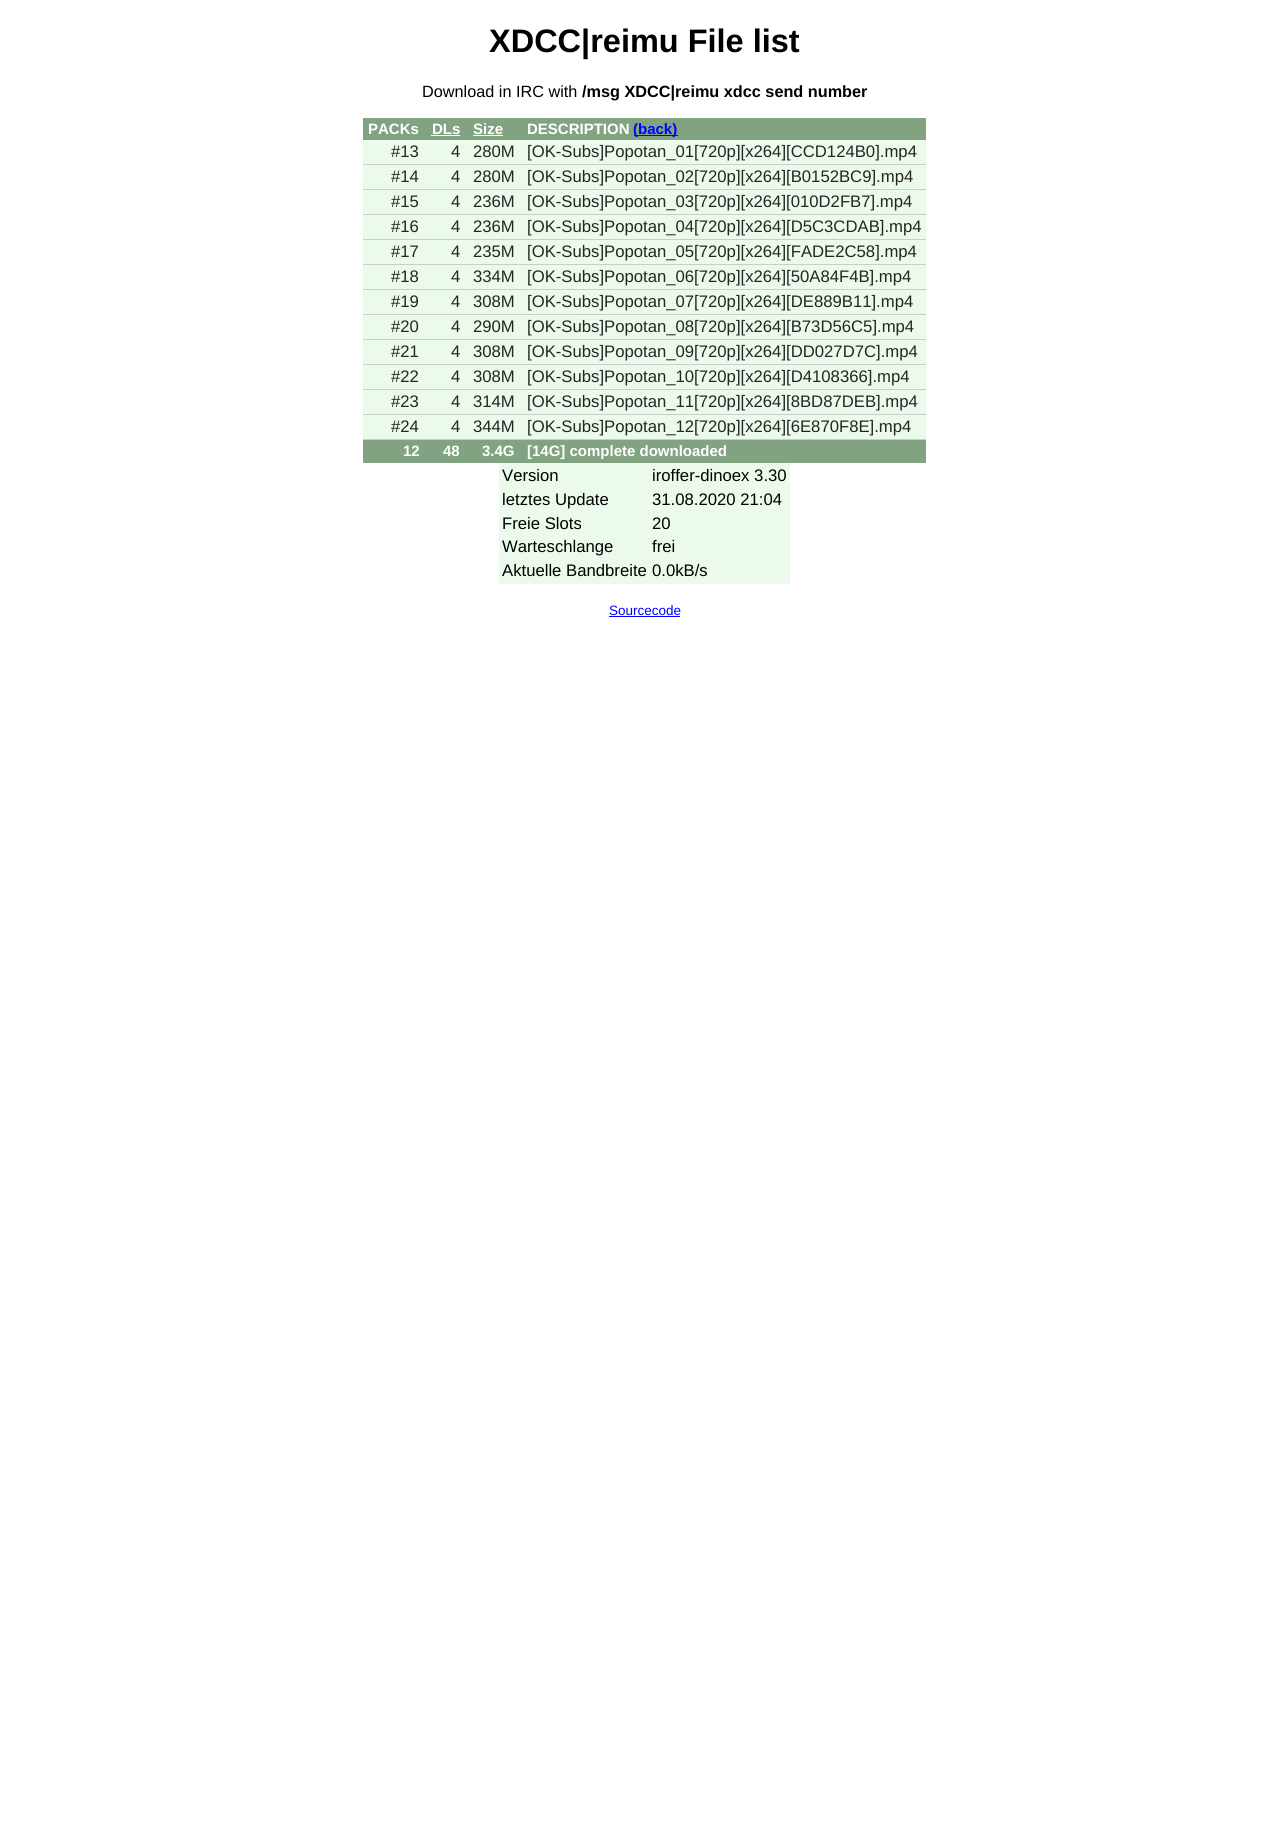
#include <cairo.h>
#include <math.h>
#include <stddef.h>


int main(void) {
    cairo_surface_t *surface = cairo_image_surface_create(CAIRO_FORMAT_RGB24, 1288, 1846);
    cairo_t *cr = cairo_create(surface);
    cairo_font_options_t *options = cairo_font_options_create();
    cairo_font_options_set_hint_metrics(options, CAIRO_HINT_METRICS_OFF);
    cairo_font_options_set_hint_style(options, CAIRO_HINT_STYLE_NONE);
    cairo_set_font_options(cr, options);
    cairo_set_miter_limit(cr, 4);
    cairo_set_source_rgb(cr, 1, 1, 1);
    cairo_paint(cr);
    cairo_select_font_face(cr, "Liberation Sans", CAIRO_FONT_SLANT_NORMAL, CAIRO_FONT_WEIGHT_BOLD);
    cairo_set_font_size(cr, 32.5);
    cairo_set_source_rgb(cr, 0, 0, 0);
    cairo_move_to(cr, 489, 52);
    cairo_show_text(cr, "XDCC|reimu File list");
    cairo_select_font_face(cr, "Liberation Sans", CAIRO_FONT_SLANT_NORMAL, CAIRO_FONT_WEIGHT_NORMAL);
    cairo_set_font_size(cr, 16.25);
    cairo_move_to(cr, 422, 97);
    cairo_show_text(cr, "Download in IRC with");
    cairo_select_font_face(cr, "Liberation Sans", CAIRO_FONT_SLANT_NORMAL, CAIRO_FONT_WEIGHT_BOLD);
    cairo_move_to(cr, 582, 97);
    cairo_show_text(cr, "/msg XDCC|reimu xdcc send number");
    cairo_set_source_rgb(cr, 0.506, 0.639, 0.506);
    cairo_rectangle(cr, 363, 118, 563, 22);
    cairo_fill(cr);
    cairo_set_font_size(cr, 15);
    cairo_set_source_rgb(cr, 1, 1, 1);
    cairo_move_to(cr, 368, 134);
    cairo_show_text(cr, "PACKs");
    cairo_move_to(cr, 432, 134);
    cairo_show_text(cr, "DLs");
    cairo_rectangle(cr, 431, 135, 29, 1);
    cairo_fill(cr);
    cairo_move_to(cr, 473, 134);
    cairo_show_text(cr, "Size");
    cairo_rectangle(cr, 473, 135, 30, 1);
    cairo_fill(cr);
    cairo_move_to(cr, 527, 134);
    cairo_show_text(cr, "DESCRIPTION");
    cairo_set_source_rgb(cr, 0, 0, 1);
    cairo_rectangle(cr, 634, 135, 44, 1);
    cairo_fill(cr);
    cairo_move_to(cr, 633, 134);
    cairo_show_text(cr, "(back)");
    cairo_set_source_rgb(cr, 0.918, 0.98, 0.918);
    cairo_rectangle(cr, 363, 140, 563, 24);
    cairo_fill(cr);
    cairo_set_source_rgb(cr, 0.8, 0.8, 0.8);
    cairo_rectangle(cr, 363, 164, 563, 1);
    cairo_fill(cr);
    cairo_select_font_face(cr, "Liberation Sans", CAIRO_FONT_SLANT_NORMAL, CAIRO_FONT_WEIGHT_NORMAL);
    cairo_set_font_size(cr, 16.7);
    cairo_set_source_rgb(cr, 0.145, 0.145, 0.145);
    cairo_move_to(cr, 391, 157);
    cairo_show_text(cr, "#13");
    cairo_move_to(cr, 451, 157);
    cairo_show_text(cr, "4");
    cairo_move_to(cr, 473, 157);
    cairo_show_text(cr, "280M");
    cairo_move_to(cr, 527, 157);
    cairo_show_text(cr, "[OK-Subs]Popotan_01[720p][x264][CCD124B0].mp4");
    cairo_set_source_rgb(cr, 0.918, 0.98, 0.918);
    cairo_rectangle(cr, 363, 165, 563, 24);
    cairo_fill(cr);
    cairo_set_source_rgb(cr, 0.8, 0.8, 0.8);
    cairo_rectangle(cr, 363, 189, 563, 1);
    cairo_fill(cr);
    cairo_set_source_rgb(cr, 0.145, 0.145, 0.145);
    cairo_move_to(cr, 391, 182);
    cairo_show_text(cr, "#14");
    cairo_move_to(cr, 451, 182);
    cairo_show_text(cr, "4");
    cairo_move_to(cr, 473, 182);
    cairo_show_text(cr, "280M");
    cairo_move_to(cr, 527, 182);
    cairo_show_text(cr, "[OK-Subs]Popotan_02[720p][x264][B0152BC9].mp4");
    cairo_set_source_rgb(cr, 0.918, 0.98, 0.918);
    cairo_rectangle(cr, 363, 190, 563, 24);
    cairo_fill(cr);
    cairo_set_source_rgb(cr, 0.8, 0.8, 0.8);
    cairo_rectangle(cr, 363, 214, 563, 1);
    cairo_fill(cr);
    cairo_set_source_rgb(cr, 0.145, 0.145, 0.145);
    cairo_move_to(cr, 391, 207);
    cairo_show_text(cr, "#15");
    cairo_move_to(cr, 451, 207);
    cairo_show_text(cr, "4");
    cairo_move_to(cr, 473, 207);
    cairo_show_text(cr, "236M");
    cairo_move_to(cr, 527, 207);
    cairo_show_text(cr, "[OK-Subs]Popotan_03[720p][x264][010D2FB7].mp4");
    cairo_set_source_rgb(cr, 0.918, 0.98, 0.918);
    cairo_rectangle(cr, 363, 215, 563, 24);
    cairo_fill(cr);
    cairo_set_source_rgb(cr, 0.8, 0.8, 0.8);
    cairo_rectangle(cr, 363, 239, 563, 1);
    cairo_fill(cr);
    cairo_set_source_rgb(cr, 0.145, 0.145, 0.145);
    cairo_move_to(cr, 391, 232);
    cairo_show_text(cr, "#16");
    cairo_move_to(cr, 451, 232);
    cairo_show_text(cr, "4");
    cairo_move_to(cr, 473, 232);
    cairo_show_text(cr, "236M");
    cairo_move_to(cr, 527, 232);
    cairo_show_text(cr, "[OK-Subs]Popotan_04[720p][x264][D5C3CDAB].mp4");
    cairo_set_source_rgb(cr, 0.918, 0.98, 0.918);
    cairo_rectangle(cr, 363, 240, 563, 24);
    cairo_fill(cr);
    cairo_set_source_rgb(cr, 0.8, 0.8, 0.8);
    cairo_rectangle(cr, 363, 264, 563, 1);
    cairo_fill(cr);
    cairo_set_source_rgb(cr, 0.145, 0.145, 0.145);
    cairo_move_to(cr, 391, 257);
    cairo_show_text(cr, "#17");
    cairo_move_to(cr, 451, 257);
    cairo_show_text(cr, "4");
    cairo_move_to(cr, 473, 257);
    cairo_show_text(cr, "235M");
    cairo_move_to(cr, 527, 257);
    cairo_show_text(cr, "[OK-Subs]Popotan_05[720p][x264][FADE2C58].mp4");
    cairo_set_source_rgb(cr, 0.918, 0.98, 0.918);
    cairo_rectangle(cr, 363, 265, 563, 24);
    cairo_fill(cr);
    cairo_set_source_rgb(cr, 0.8, 0.8, 0.8);
    cairo_rectangle(cr, 363, 289, 563, 1);
    cairo_fill(cr);
    cairo_set_source_rgb(cr, 0.145, 0.145, 0.145);
    cairo_move_to(cr, 391, 282);
    cairo_show_text(cr, "#18");
    cairo_move_to(cr, 451, 282);
    cairo_show_text(cr, "4");
    cairo_move_to(cr, 473, 282);
    cairo_show_text(cr, "334M");
    cairo_move_to(cr, 527, 282);
    cairo_show_text(cr, "[OK-Subs]Popotan_06[720p][x264][50A84F4B].mp4");
    cairo_set_source_rgb(cr, 0.918, 0.98, 0.918);
    cairo_rectangle(cr, 363, 290, 563, 24);
    cairo_fill(cr);
    cairo_set_source_rgb(cr, 0.8, 0.8, 0.8);
    cairo_rectangle(cr, 363, 314, 563, 1);
    cairo_fill(cr);
    cairo_set_source_rgb(cr, 0.145, 0.145, 0.145);
    cairo_move_to(cr, 391, 307);
    cairo_show_text(cr, "#19");
    cairo_move_to(cr, 451, 307);
    cairo_show_text(cr, "4");
    cairo_move_to(cr, 473, 307);
    cairo_show_text(cr, "308M");
    cairo_move_to(cr, 527, 307);
    cairo_show_text(cr, "[OK-Subs]Popotan_07[720p][x264][DE889B11].mp4");
    cairo_set_source_rgb(cr, 0.918, 0.98, 0.918);
    cairo_rectangle(cr, 363, 315, 563, 24);
    cairo_fill(cr);
    cairo_set_source_rgb(cr, 0.8, 0.8, 0.8);
    cairo_rectangle(cr, 363, 339, 563, 1);
    cairo_fill(cr);
    cairo_set_source_rgb(cr, 0.145, 0.145, 0.145);
    cairo_move_to(cr, 391, 332);
    cairo_show_text(cr, "#20");
    cairo_move_to(cr, 451, 332);
    cairo_show_text(cr, "4");
    cairo_move_to(cr, 473, 332);
    cairo_show_text(cr, "290M");
    cairo_move_to(cr, 527, 332);
    cairo_show_text(cr, "[OK-Subs]Popotan_08[720p][x264][B73D56C5].mp4");
    cairo_set_source_rgb(cr, 0.918, 0.98, 0.918);
    cairo_rectangle(cr, 363, 340, 563, 24);
    cairo_fill(cr);
    cairo_set_source_rgb(cr, 0.8, 0.8, 0.8);
    cairo_rectangle(cr, 363, 364, 563, 1);
    cairo_fill(cr);
    cairo_set_source_rgb(cr, 0.145, 0.145, 0.145);
    cairo_move_to(cr, 391, 357);
    cairo_show_text(cr, "#21");
    cairo_move_to(cr, 451, 357);
    cairo_show_text(cr, "4");
    cairo_move_to(cr, 473, 357);
    cairo_show_text(cr, "308M");
    cairo_move_to(cr, 527, 357);
    cairo_show_text(cr, "[OK-Subs]Popotan_09[720p][x264][DD027D7C].mp4");
    cairo_set_source_rgb(cr, 0.918, 0.98, 0.918);
    cairo_rectangle(cr, 363, 365, 563, 24);
    cairo_fill(cr);
    cairo_set_source_rgb(cr, 0.8, 0.8, 0.8);
    cairo_rectangle(cr, 363, 389, 563, 1);
    cairo_fill(cr);
    cairo_set_source_rgb(cr, 0.145, 0.145, 0.145);
    cairo_move_to(cr, 391, 382);
    cairo_show_text(cr, "#22");
    cairo_move_to(cr, 451, 382);
    cairo_show_text(cr, "4");
    cairo_move_to(cr, 473, 382);
    cairo_show_text(cr, "308M");
    cairo_move_to(cr, 527, 382);
    cairo_show_text(cr, "[OK-Subs]Popotan_10[720p][x264][D4108366].mp4");
    cairo_set_source_rgb(cr, 0.918, 0.98, 0.918);
    cairo_rectangle(cr, 363, 390, 563, 24);
    cairo_fill(cr);
    cairo_set_source_rgb(cr, 0.8, 0.8, 0.8);
    cairo_rectangle(cr, 363, 414, 563, 1);
    cairo_fill(cr);
    cairo_set_source_rgb(cr, 0.145, 0.145, 0.145);
    cairo_move_to(cr, 391, 407);
    cairo_show_text(cr, "#23");
    cairo_move_to(cr, 451, 407);
    cairo_show_text(cr, "4");
    cairo_move_to(cr, 473, 407);
    cairo_show_text(cr, "314M");
    cairo_move_to(cr, 527, 407);
    cairo_show_text(cr, "[OK-Subs]Popotan_11[720p][x264][8BD87DEB].mp4");
    cairo_set_source_rgb(cr, 0.918, 0.98, 0.918);
    cairo_rectangle(cr, 363, 415, 563, 24);
    cairo_fill(cr);
    cairo_set_source_rgb(cr, 0.8, 0.8, 0.8);
    cairo_rectangle(cr, 363, 439, 563, 1);
    cairo_fill(cr);
    cairo_set_source_rgb(cr, 0.145, 0.145, 0.145);
    cairo_move_to(cr, 391, 432);
    cairo_show_text(cr, "#24");
    cairo_move_to(cr, 451, 432);
    cairo_show_text(cr, "4");
    cairo_move_to(cr, 473, 432);
    cairo_show_text(cr, "344M");
    cairo_move_to(cr, 527, 432);
    cairo_show_text(cr, "[OK-Subs]Popotan_12[720p][x264][6E870F8E].mp4");
    cairo_set_source_rgb(cr, 0.506, 0.639, 0.506);
    cairo_rectangle(cr, 363, 440, 563, 23);
    cairo_fill(cr);
    cairo_select_font_face(cr, "Liberation Sans", CAIRO_FONT_SLANT_NORMAL, CAIRO_FONT_WEIGHT_BOLD);
    cairo_set_font_size(cr, 15);
    cairo_set_source_rgb(cr, 1, 1, 1);
    cairo_move_to(cr, 403, 456);
    cairo_show_text(cr, "12");
    cairo_move_to(cr, 443, 456);
    cairo_show_text(cr, "48");
    cairo_move_to(cr, 482, 456);
    cairo_show_text(cr, "3.4G");
    cairo_move_to(cr, 527, 456);
    cairo_show_text(cr, "[14G] complete downloaded");
    cairo_set_source_rgb(cr, 0.918, 0.98, 0.918);
    cairo_rectangle(cr, 499, 463, 291, 121);
    cairo_fill(cr);
    cairo_select_font_face(cr, "Liberation Sans", CAIRO_FONT_SLANT_NORMAL, CAIRO_FONT_WEIGHT_NORMAL);
    cairo_set_font_size(cr, 16.7);
    cairo_set_source_rgb(cr, 0, 0, 0);
    cairo_move_to(cr, 502, 481);
    cairo_show_text(cr, "Version");
    cairo_move_to(cr, 652, 481);
    cairo_show_text(cr, "iroffer-dinoex 3.30");
    cairo_move_to(cr, 502, 505);
    cairo_show_text(cr, "letztes Update");
    cairo_move_to(cr, 652, 505);
    cairo_show_text(cr, "31.08.2020 21:04");
    cairo_move_to(cr, 502, 529);
    cairo_show_text(cr, "Freie Slots");
    cairo_move_to(cr, 652, 529);
    cairo_show_text(cr, "20");
    cairo_move_to(cr, 502, 552);
    cairo_show_text(cr, "Warteschlange");
    cairo_move_to(cr, 652, 552);
    cairo_show_text(cr, "frei");
    cairo_move_to(cr, 502, 576);
    cairo_show_text(cr, "Aktuelle Bandbreite");
    cairo_move_to(cr, 652, 576);
    cairo_show_text(cr, "0.0kB/s");
    cairo_set_font_size(cr, 13.5);
    cairo_set_source_rgb(cr, 0, 0, 1);
    cairo_move_to(cr, 609, 615);
    cairo_show_text(cr, "Sourcecode");
    cairo_rectangle(cr, 609, 616, 71, 1);
    cairo_fill(cr);
    cairo_surface_write_to_png(surface, "page.png");
    cairo_font_options_destroy(options);
    cairo_destroy(cr);
    cairo_surface_destroy(surface);
    return 0;
}
